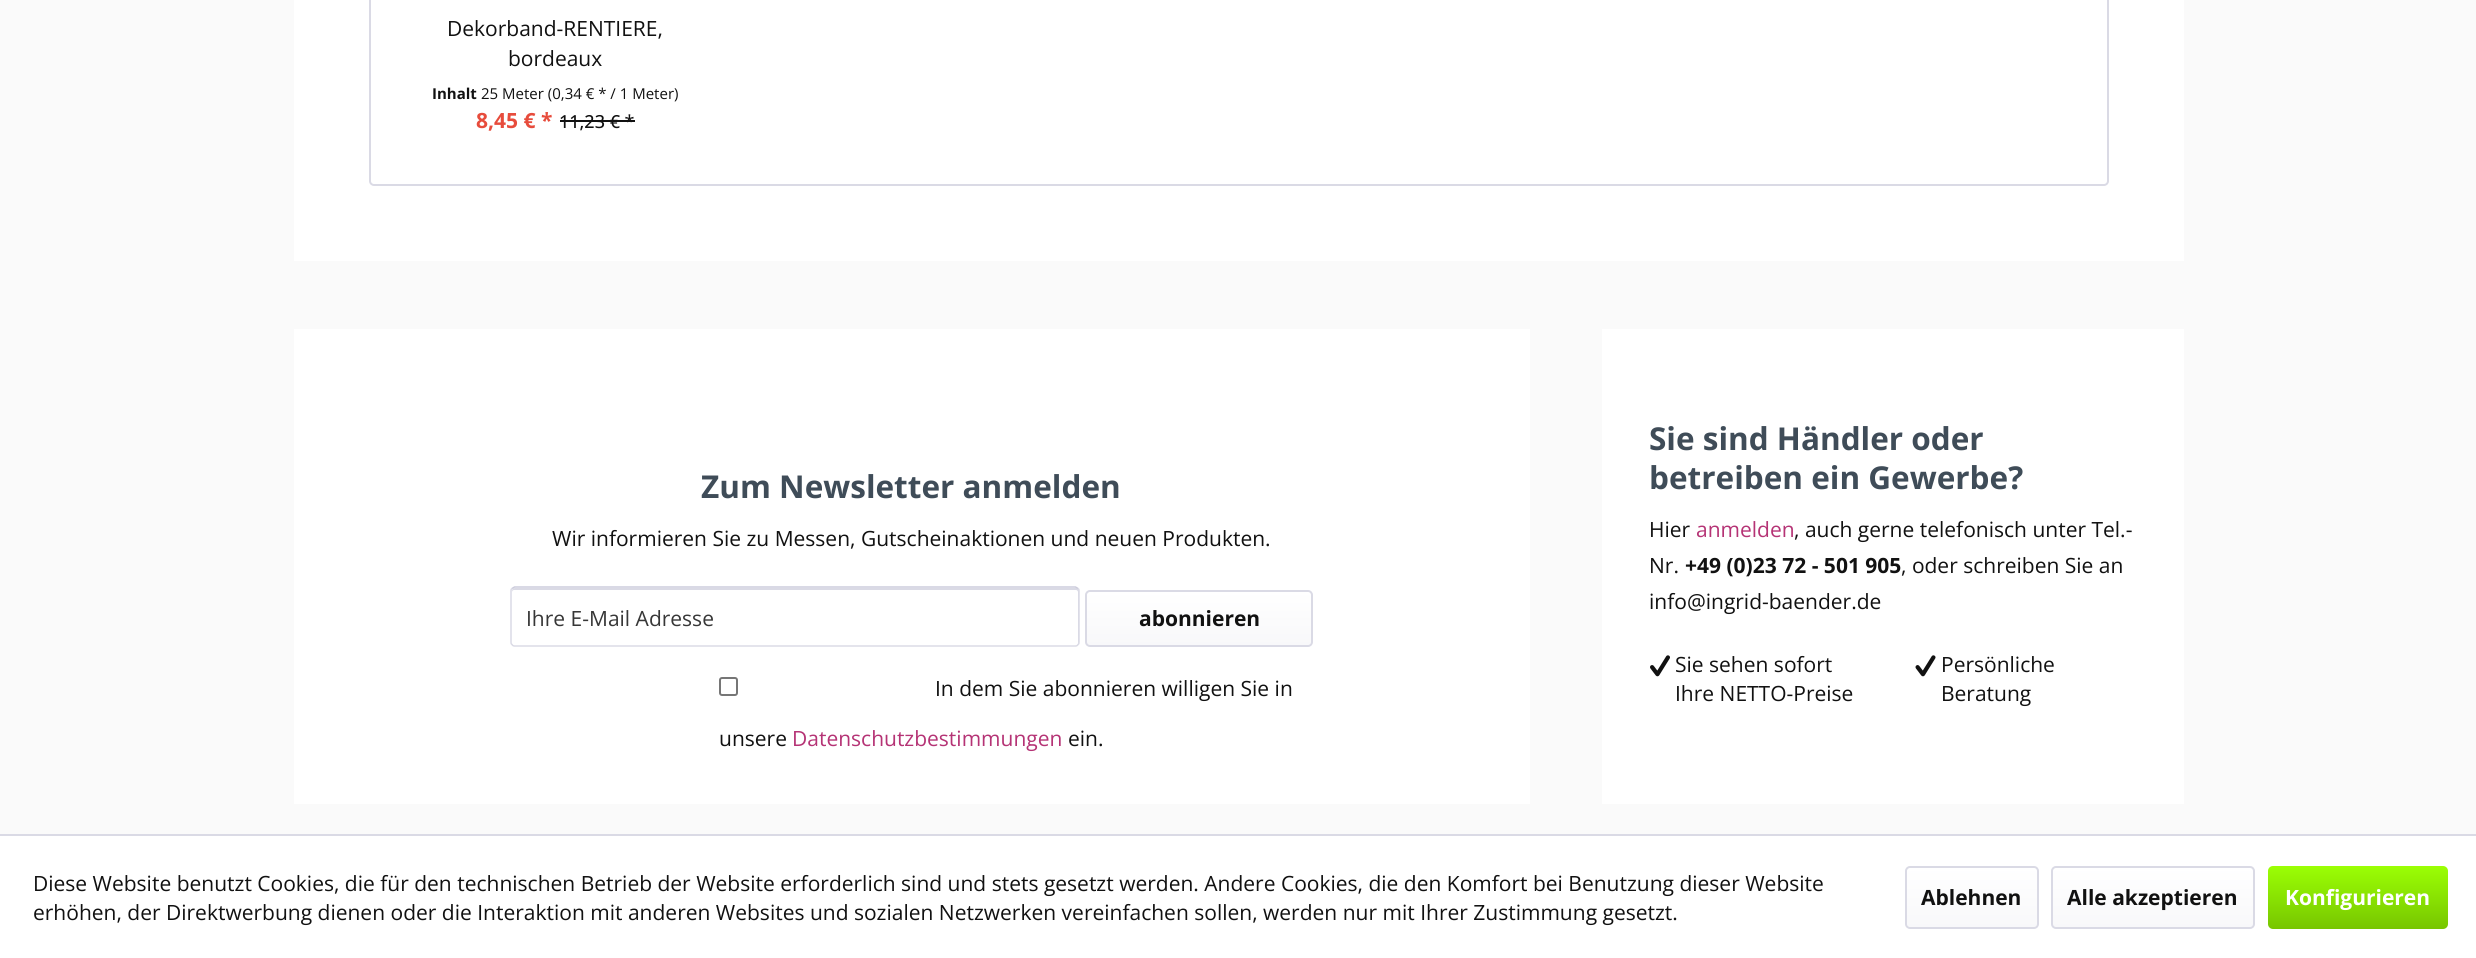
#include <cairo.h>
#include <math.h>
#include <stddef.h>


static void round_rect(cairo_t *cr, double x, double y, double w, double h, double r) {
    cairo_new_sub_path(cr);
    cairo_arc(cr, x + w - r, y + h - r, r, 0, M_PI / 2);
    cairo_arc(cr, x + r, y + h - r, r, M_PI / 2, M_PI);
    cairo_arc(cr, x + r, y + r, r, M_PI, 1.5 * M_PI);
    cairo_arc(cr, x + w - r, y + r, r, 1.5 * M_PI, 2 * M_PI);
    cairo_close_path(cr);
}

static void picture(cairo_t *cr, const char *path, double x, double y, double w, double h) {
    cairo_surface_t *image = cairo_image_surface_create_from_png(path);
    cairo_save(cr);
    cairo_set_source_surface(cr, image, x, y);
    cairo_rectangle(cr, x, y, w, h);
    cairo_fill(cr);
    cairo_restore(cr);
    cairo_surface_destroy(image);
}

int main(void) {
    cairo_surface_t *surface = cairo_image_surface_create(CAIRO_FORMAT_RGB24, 2476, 958);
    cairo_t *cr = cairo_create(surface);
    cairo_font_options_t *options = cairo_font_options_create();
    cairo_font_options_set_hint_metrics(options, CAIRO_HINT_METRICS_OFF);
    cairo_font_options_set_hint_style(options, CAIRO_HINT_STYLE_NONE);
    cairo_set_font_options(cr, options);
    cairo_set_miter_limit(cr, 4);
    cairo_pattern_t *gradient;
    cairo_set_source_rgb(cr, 0.98, 0.98, 0.98);
    cairo_paint(cr);
    cairo_set_source_rgb(cr, 1, 1, 1);
    cairo_rectangle(cr, 294, 0, 1890, 261);
    cairo_fill(cr);
    round_rect(cr, 370, -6, 1738, 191, 4);
    cairo_set_source_rgb(cr, 0.855, 0.855, 0.898);
    cairo_stroke(cr);
    cairo_select_font_face(cr, "Open Sans", CAIRO_FONT_SLANT_NORMAL, CAIRO_FONT_WEIGHT_NORMAL);
    cairo_set_font_size(cr, 21);
    cairo_set_source_rgb(cr, 0.067, 0.067, 0.067);
    cairo_move_to(cr, 447, 36);
    cairo_show_text(cr, "Dekorband-RENTIERE,");
    cairo_move_to(cr, 508, 66);
    cairo_show_text(cr, "bordeaux");
    cairo_select_font_face(cr, "Open Sans", CAIRO_FONT_SLANT_NORMAL, CAIRO_FONT_WEIGHT_BOLD);
    cairo_set_font_size(cr, 15);
    cairo_move_to(cr, 432, 99);
    cairo_show_text(cr, "Inhalt");
    cairo_select_font_face(cr, "Open Sans", CAIRO_FONT_SLANT_NORMAL, CAIRO_FONT_WEIGHT_NORMAL);
    cairo_move_to(cr, 481, 99);
    cairo_show_text(cr, "25 Meter (0,34 € * / 1 Meter)");
    cairo_select_font_face(cr, "Open Sans", CAIRO_FONT_SLANT_NORMAL, CAIRO_FONT_WEIGHT_BOLD);
    cairo_set_font_size(cr, 21);
    cairo_set_source_rgb(cr, 0.906, 0.298, 0.235);
    cairo_move_to(cr, 476, 128);
    cairo_show_text(cr, "8,45 € *");
    cairo_select_font_face(cr, "Open Sans Medium", CAIRO_FONT_SLANT_NORMAL, CAIRO_FONT_WEIGHT_NORMAL);
    cairo_set_font_size(cr, 18);
    cairo_set_source_rgb(cr, 0.067, 0.067, 0.067);
    cairo_move_to(cr, 559, 128);
    cairo_show_text(cr, "11,23 € *");
    cairo_rectangle(cr, 560, 120, 75, 2);
    cairo_fill(cr);
    cairo_set_source_rgb(cr, 1, 1, 1);
    cairo_rectangle(cr, 294, 329, 1236, 475);
    cairo_fill(cr);
    cairo_select_font_face(cr, "Open Sans", CAIRO_FONT_SLANT_NORMAL, CAIRO_FONT_WEIGHT_BOLD);
    cairo_set_font_size(cr, 31.5);
    cairo_set_source_rgb(cr, 0.247, 0.298, 0.345);
    cairo_move_to(cr, 701, 498);
    cairo_show_text(cr, "Zum Newsletter anmelden");
    cairo_select_font_face(cr, "Open Sans", CAIRO_FONT_SLANT_NORMAL, CAIRO_FONT_WEIGHT_NORMAL);
    cairo_set_font_size(cr, 21);
    cairo_set_source_rgb(cr, 0.067, 0.067, 0.067);
    cairo_move_to(cr, 552, 546);
    cairo_show_text(cr, "Wir informieren Sie zu Messen, Gutscheinaktionen und neuen Produkten.");
    cairo_set_source_rgb(cr, 0.855, 0.855, 0.898);
    cairo_new_path(cr);
    cairo_move_to(cr, 514, 590);
    cairo_line_to(cr, 1076, 590);
    cairo_curve_to(cr, 1077, 590, 1078, 591, 1078, 592);
    cairo_line_to(cr, 1078, 644);
    cairo_curve_to(cr, 1079, 644, 1079, 643, 1079, 642);
    cairo_line_to(cr, 1079, 591);
    cairo_curve_to(cr, 1079, 589, 1078, 588, 1076, 588);
    cairo_line_to(cr, 515, 588);
    cairo_curve_to(cr, 513, 588, 512, 589, 512, 591);
    cairo_line_to(cr, 512, 592);
    cairo_curve_to(cr, 512, 591, 513, 590, 514, 590);
    cairo_close_path(cr);
    cairo_fill(cr);
    cairo_new_path(cr);
    cairo_move_to(cr, 512, 588.5);
    cairo_line_to(cr, 514.5, 587);
    cairo_line_to(cr, 1075.5, 587);
    cairo_line_to(cr, 1078, 588.5);
    cairo_set_source_rgb(cr, 0.796, 0.796, 0.859);
    cairo_set_line_width(cr, 1.5);
    cairo_stroke(cr);
    cairo_new_path(cr);
    cairo_move_to(cr, 1078, 588.5);
    cairo_curve_to(cr, 1079, 589, 1079, 590, 1079, 591);
    cairo_line_to(cr, 1079, 642);
    cairo_curve_to(cr, 1079, 643, 1079, 644, 1078, 644.5);
    cairo_curve_to(cr, 1077.5, 645.5, 1076.5, 646, 1075.5, 646);
    cairo_line_to(cr, 514.5, 646);
    cairo_curve_to(cr, 513.5, 646, 512.5, 645.5, 512, 644.5);
    cairo_curve_to(cr, 511, 644, 511, 643, 511, 642);
    cairo_line_to(cr, 511, 591);
    cairo_curve_to(cr, 511, 590, 511, 589, 512, 588.5);
    cairo_set_source_rgb(cr, 0.855, 0.855, 0.898);
    cairo_stroke(cr);
    cairo_set_source_rgb(cr, 0.216, 0.216, 0.216);
    cairo_move_to(cr, 526, 626);
    cairo_show_text(cr, "Ihre E-Mail Adresse");
    gradient = cairo_pattern_create_linear(1199, 591, 1199, 645);
    cairo_pattern_add_color_stop_rgba(gradient, 0, 1, 1, 1, 1);
    cairo_pattern_add_color_stop_rgba(gradient, 1, 0.973, 0.973, 0.98, 1);
    cairo_set_source(cr, gradient);
    cairo_pattern_destroy(gradient);
    round_rect(cr, 1086, 591, 225, 54, 3);
    cairo_fill(cr);
    round_rect(cr, 1086, 591, 226, 55, 4);
    cairo_set_source_rgb(cr, 0.855, 0.855, 0.898);
    cairo_set_line_width(cr, 2);
    cairo_stroke(cr);
    cairo_select_font_face(cr, "Open Sans", CAIRO_FONT_SLANT_NORMAL, CAIRO_FONT_WEIGHT_BOLD);
    cairo_set_source_rgb(cr, 0.067, 0.067, 0.067);
    cairo_move_to(cr, 1139, 626);
    cairo_show_text(cr, "abonnieren");
    round_rect(cr, 720, 678, 17, 17, 2);
    cairo_set_source_rgb(cr, 0.463, 0.463, 0.463);
    cairo_stroke(cr);
    cairo_select_font_face(cr, "Open Sans", CAIRO_FONT_SLANT_NORMAL, CAIRO_FONT_WEIGHT_NORMAL);
    cairo_set_source_rgb(cr, 0.067, 0.067, 0.067);
    cairo_move_to(cr, 935, 696);
    cairo_show_text(cr, "In dem Sie abonnieren willigen Sie in");
    cairo_move_to(cr, 719, 746);
    cairo_show_text(cr, "unsere");
    cairo_set_source_rgb(cr, 0.71, 0.2, 0.459);
    cairo_move_to(cr, 792, 746);
    cairo_show_text(cr, "Datenschutzbestimmungen");
    cairo_set_source_rgb(cr, 0.067, 0.067, 0.067);
    cairo_move_to(cr, 1068, 746);
    cairo_show_text(cr, "ein.");
    cairo_set_source_rgb(cr, 1, 1, 1);
    cairo_rectangle(cr, 1602, 329, 582, 475);
    cairo_fill(cr);
    cairo_select_font_face(cr, "Open Sans", CAIRO_FONT_SLANT_NORMAL, CAIRO_FONT_WEIGHT_BOLD);
    cairo_set_font_size(cr, 31.5);
    cairo_set_source_rgb(cr, 0.247, 0.298, 0.345);
    cairo_move_to(cr, 1649, 450);
    cairo_show_text(cr, "Sie sind Händler oder");
    cairo_move_to(cr, 1649, 489);
    cairo_show_text(cr, "betreiben ein Gewerbe?");
    cairo_select_font_face(cr, "Open Sans", CAIRO_FONT_SLANT_NORMAL, CAIRO_FONT_WEIGHT_NORMAL);
    cairo_set_font_size(cr, 21);
    cairo_set_source_rgb(cr, 0.067, 0.067, 0.067);
    cairo_move_to(cr, 1649, 537);
    cairo_show_text(cr, "Hier");
    cairo_set_source_rgb(cr, 0.71, 0.2, 0.459);
    cairo_move_to(cr, 1696, 537);
    cairo_show_text(cr, "anmelden");
    cairo_set_source_rgb(cr, 0.067, 0.067, 0.067);
    cairo_move_to(cr, 1794, 537);
    cairo_show_text(cr, ", auch gerne telefonisch unter Tel.-");
    cairo_move_to(cr, 1649, 573);
    cairo_show_text(cr, "Nr.");
    cairo_select_font_face(cr, "Open Sans", CAIRO_FONT_SLANT_NORMAL, CAIRO_FONT_WEIGHT_BOLD);
    cairo_move_to(cr, 1685, 573);
    cairo_show_text(cr, "+49 (0)23 72 - 501 905");
    cairo_select_font_face(cr, "Open Sans", CAIRO_FONT_SLANT_NORMAL, CAIRO_FONT_WEIGHT_NORMAL);
    cairo_move_to(cr, 1901, 573);
    cairo_show_text(cr, ", oder schreiben Sie an");
    cairo_move_to(cr, 1649, 609);
    cairo_show_text(cr, "info@ingrid-baender.de");
    picture(cr, "img1.png", 1650, 655, 20, 22);
    cairo_move_to(cr, 1675, 672);
    cairo_show_text(cr, "Sie sehen sofort");
    cairo_move_to(cr, 1675, 701);
    cairo_show_text(cr, "Ihre NETTO-Preise");
    picture(cr, "img2.png", 1915, 655, 21, 22);
    cairo_move_to(cr, 1941, 672);
    cairo_show_text(cr, "Persönliche");
    cairo_move_to(cr, 1941, 701);
    cairo_show_text(cr, "Beratung");
    cairo_set_source_rgb(cr, 1, 1, 1);
    cairo_rectangle(cr, 0, 836, 2476, 122);
    cairo_fill(cr);
    cairo_set_source_rgb(cr, 0.855, 0.855, 0.898);
    cairo_rectangle(cr, 0, 834, 2476, 2);
    cairo_fill(cr);
    cairo_set_source_rgb(cr, 0.067, 0.067, 0.067);
    cairo_move_to(cr, 33, 891);
    cairo_show_text(cr, "Diese Website benutzt Cookies, die für den technischen Betrieb der Website erforderlich sind und stets gesetzt werden. Andere Cookies, die den Komfort bei Benutzung dieser Website");
    cairo_move_to(cr, 33, 920);
    cairo_show_text(cr, "erhöhen, der Direktwerbung dienen oder die Interaktion mit anderen Websites und sozialen Netzwerken vereinfachen sollen, werden nur mit Ihrer Zustimmung gesetzt.");
    gradient = cairo_pattern_create_linear(1972, 867, 1972, 927);
    cairo_pattern_add_color_stop_rgba(gradient, 0, 1, 1, 1, 1);
    cairo_pattern_add_color_stop_rgba(gradient, 1, 0.973, 0.973, 0.98, 1);
    cairo_set_source(cr, gradient);
    cairo_pattern_destroy(gradient);
    round_rect(cr, 1907, 867, 130, 60, 3);
    cairo_fill(cr);
    round_rect(cr, 1906, 867, 132, 61, 4);
    cairo_set_source_rgb(cr, 0.855, 0.855, 0.898);
    cairo_stroke(cr);
    cairo_select_font_face(cr, "Open Sans", CAIRO_FONT_SLANT_NORMAL, CAIRO_FONT_WEIGHT_BOLD);
    cairo_set_source_rgb(cr, 0.067, 0.067, 0.067);
    cairo_move_to(cr, 1921, 905);
    cairo_show_text(cr, "Ablehnen");
    gradient = cairo_pattern_create_linear(2153, 867, 2153, 927);
    cairo_pattern_add_color_stop_rgba(gradient, 0, 1, 1, 1, 1);
    cairo_pattern_add_color_stop_rgba(gradient, 1, 0.973, 0.973, 0.98, 1);
    cairo_set_source(cr, gradient);
    cairo_pattern_destroy(gradient);
    round_rect(cr, 2052, 867, 201, 60, 3);
    cairo_fill(cr);
    round_rect(cr, 2052, 867, 202, 61, 4);
    cairo_set_source_rgb(cr, 0.855, 0.855, 0.898);
    cairo_stroke(cr);
    cairo_set_source_rgb(cr, 0.067, 0.067, 0.067);
    cairo_move_to(cr, 2067, 905);
    cairo_show_text(cr, "Alle akzeptieren");
    gradient = cairo_pattern_create_linear(2358, 866, 2358, 929);
    cairo_pattern_add_color_stop_rgba(gradient, 0, 0.608, 1, 0.016, 1);
    cairo_pattern_add_color_stop_rgba(gradient, 1, 0.467, 0.776, 0, 1);
    cairo_set_source(cr, gradient);
    cairo_pattern_destroy(gradient);
    round_rect(cr, 2268, 866, 180, 63, 5);
    cairo_fill(cr);
    cairo_set_source_rgb(cr, 1, 1, 1);
    cairo_move_to(cr, 2285, 905);
    cairo_show_text(cr, "Konfigurieren");
    cairo_surface_write_to_png(surface, "page.png");
    cairo_font_options_destroy(options);
    cairo_destroy(cr);
    cairo_surface_destroy(surface);
    return 0;
}
